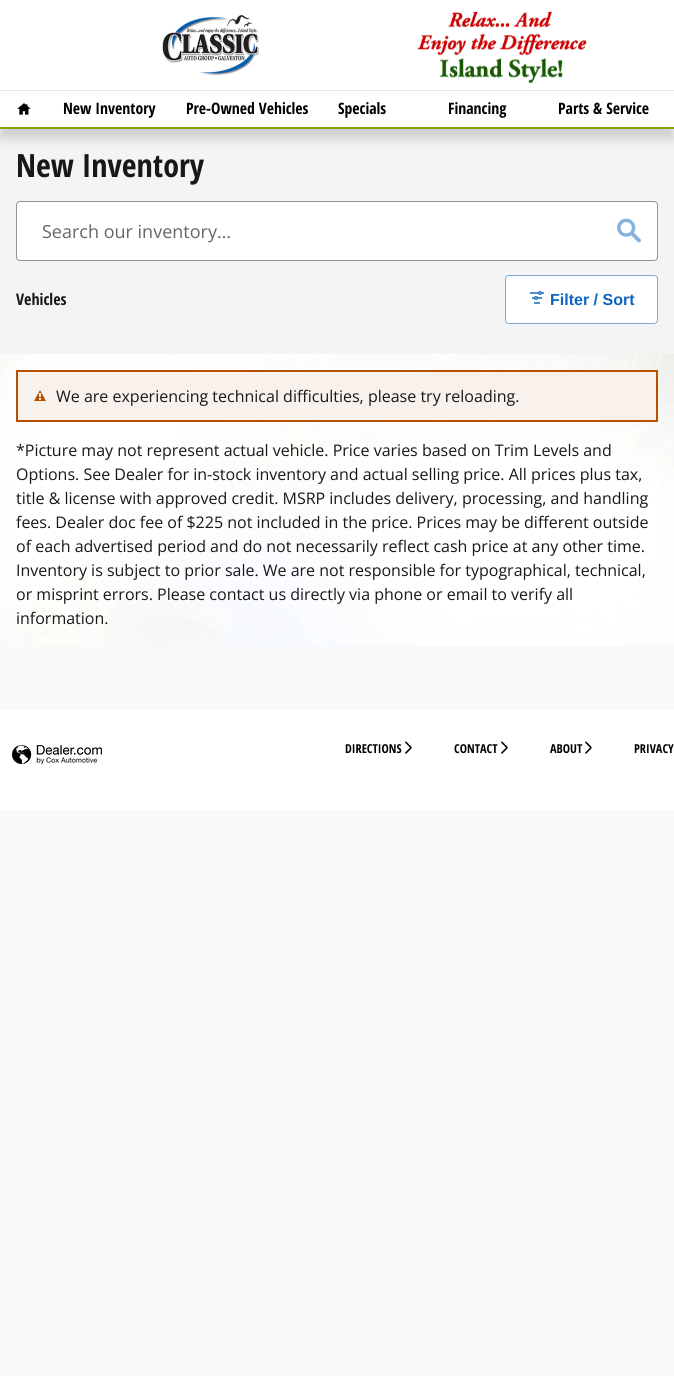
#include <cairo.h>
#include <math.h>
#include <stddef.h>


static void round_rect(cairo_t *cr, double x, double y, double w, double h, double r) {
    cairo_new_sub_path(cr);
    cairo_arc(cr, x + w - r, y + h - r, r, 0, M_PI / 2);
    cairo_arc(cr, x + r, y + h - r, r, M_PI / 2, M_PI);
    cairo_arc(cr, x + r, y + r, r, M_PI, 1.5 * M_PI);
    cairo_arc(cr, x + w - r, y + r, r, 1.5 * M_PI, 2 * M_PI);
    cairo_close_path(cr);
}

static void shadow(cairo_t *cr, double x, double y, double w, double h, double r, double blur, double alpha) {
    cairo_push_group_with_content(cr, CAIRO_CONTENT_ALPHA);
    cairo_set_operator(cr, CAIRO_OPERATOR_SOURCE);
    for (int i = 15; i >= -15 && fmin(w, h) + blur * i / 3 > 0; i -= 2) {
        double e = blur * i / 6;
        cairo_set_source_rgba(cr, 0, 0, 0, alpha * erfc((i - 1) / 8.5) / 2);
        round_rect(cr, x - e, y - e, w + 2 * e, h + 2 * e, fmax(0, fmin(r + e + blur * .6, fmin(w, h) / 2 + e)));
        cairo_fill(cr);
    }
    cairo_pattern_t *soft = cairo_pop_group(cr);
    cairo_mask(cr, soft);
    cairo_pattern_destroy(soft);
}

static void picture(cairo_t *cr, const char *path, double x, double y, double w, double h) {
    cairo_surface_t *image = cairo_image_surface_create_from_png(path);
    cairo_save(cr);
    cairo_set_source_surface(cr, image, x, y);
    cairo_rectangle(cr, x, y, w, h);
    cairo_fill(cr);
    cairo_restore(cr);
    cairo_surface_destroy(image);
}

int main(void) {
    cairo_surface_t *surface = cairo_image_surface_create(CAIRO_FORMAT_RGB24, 674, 1376);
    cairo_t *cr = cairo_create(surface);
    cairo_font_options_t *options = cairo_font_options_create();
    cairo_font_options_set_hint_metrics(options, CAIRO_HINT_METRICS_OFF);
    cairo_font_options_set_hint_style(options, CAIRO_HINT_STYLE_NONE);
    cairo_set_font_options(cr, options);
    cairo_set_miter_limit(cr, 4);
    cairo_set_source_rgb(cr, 0.976, 0.976, 0.98);
    cairo_paint(cr);
    cairo_set_source_rgb(cr, 0.957, 0.957, 0.957);
    cairo_rectangle(cr, 0, 129, 674, 225);
    cairo_fill(cr);
    cairo_set_source_rgb(cr, 0, 0, 0);
    shadow(cr, 0, 100, 674, 39, 0, 5, 0.15);
    cairo_set_source_rgb(cr, 1, 1, 1);
    cairo_rectangle(cr, 0, 0, 674, 90);
    cairo_fill(cr);
    picture(cr, "img1.png", 162, 15, 97, 60);
    picture(cr, "img2.png", 417, 11, 170, 72);
    cairo_rectangle(cr, 0, 91, 674, 36);
    cairo_fill(cr);
    cairo_set_source_rgb(cr, 0.525, 0.635, 0);
    cairo_rectangle(cr, 0, 127, 674, 2);
    cairo_fill(cr);
    cairo_set_source_rgb(cr, 0.902, 0.902, 0.902);
    cairo_rectangle(cr, 0, 90, 674, 1);
    cairo_fill(cr);
    picture(cr, "img3.png", 17, 103, 14, 12);
    cairo_select_font_face(cr, "Open Sans Condensed", CAIRO_FONT_SLANT_NORMAL, CAIRO_FONT_WEIGHT_BOLD);
    cairo_set_font_size(cr, 15.75);
    cairo_set_source_rgb(cr, 0, 0, 0);
    cairo_move_to(cr, 63, 114);
    cairo_show_text(cr, "New Inventory");
    cairo_move_to(cr, 186, 114);
    cairo_show_text(cr, "Pre-Owned Vehicles");
    cairo_move_to(cr, 338, 114);
    cairo_show_text(cr, "Specials");
    cairo_move_to(cr, 448, 114);
    cairo_show_text(cr, "Financing");
    cairo_move_to(cr, 558, 114);
    cairo_show_text(cr, "Parts & Service");
    picture(cr, "img4.png", 0, 354, 674, 292);
    cairo_set_font_size(cr, 32);
    cairo_set_source_rgb(cr, 0.094, 0.094, 0.094);
    cairo_move_to(cr, 16, 177);
    cairo_show_text(cr, "New Inventory");
    cairo_set_source_rgb(cr, 1, 1, 1);
    round_rect(cr, 16.5, 201.5, 641, 59, 3.5);
    cairo_fill_preserve(cr);
    cairo_set_source_rgb(cr, 0.58, 0.584, 0.6);
    cairo_set_line_width(cr, 1);
    cairo_stroke(cr);
    cairo_select_font_face(cr, "Open Sans", CAIRO_FONT_SLANT_NORMAL, CAIRO_FONT_WEIGHT_NORMAL);
    cairo_set_font_size(cr, 18);
    cairo_set_source_rgb(cr, 0.4, 0.4, 0.4);
    cairo_move_to(cr, 42, 238);
    cairo_show_text(cr, "Search our inventory…");
    picture(cr, "img5.png", 617, 218, 24, 25);
    cairo_select_font_face(cr, "Open Sans Condensed", CAIRO_FONT_SLANT_NORMAL, CAIRO_FONT_WEIGHT_BOLD);
    cairo_set_font_size(cr, 16);
    cairo_set_source_rgb(cr, 0.094, 0.094, 0.094);
    cairo_move_to(cr, 16, 305);
    cairo_show_text(cr, "Vehicles");
    cairo_set_source_rgb(cr, 1, 1, 1);
    round_rect(cr, 505.5, 275.5, 152, 48, 3.5);
    cairo_fill_preserve(cr);
    cairo_set_source_rgb(cr, 0.486, 0.675, 0.863);
    cairo_stroke(cr);
    picture(cr, "img6.png", 530, 291, 14, 13);
    cairo_select_font_face(cr, "Liberation Sans", CAIRO_FONT_SLANT_NORMAL, CAIRO_FONT_WEIGHT_BOLD);
    cairo_set_source_rgb(cr, 0.051, 0.396, 0.749);
    cairo_move_to(cr, 550, 305);
    cairo_show_text(cr, "Filter / Sort");
    cairo_set_source_rgb(cr, 0.976, 0.945, 0.922);
    cairo_rectangle(cr, 17, 371, 640, 50);
    cairo_fill_preserve(cr);
    cairo_set_source_rgb(cr, 0.71, 0.318, 0);
    cairo_set_line_width(cr, 2);
    cairo_stroke(cr);
    picture(cr, "img7.png", 34, 390, 12, 11);
    cairo_select_font_face(cr, "Open Sans", CAIRO_FONT_SLANT_NORMAL, CAIRO_FONT_WEIGHT_NORMAL);
    cairo_set_source_rgb(cr, 0.094, 0.094, 0.094);
    cairo_move_to(cr, 56, 402);
    cairo_show_text(cr, "We are experiencing technical difficulties, please try reloading.");
    cairo_move_to(cr, 16, 456);
    cairo_show_text(cr, "*Picture may not represent actual vehicle. Price varies based on Trim Levels and");
    cairo_move_to(cr, 16, 480);
    cairo_show_text(cr, "Options. See Dealer for in-stock inventory and actual selling price. All prices plus tax,");
    cairo_move_to(cr, 16, 504);
    cairo_show_text(cr, "title & license with approved credit. MSRP includes delivery, processing, and handling");
    cairo_move_to(cr, 16, 528);
    cairo_show_text(cr, "fees. Dealer doc fee of $225 not included in the price. Prices may be different outside");
    cairo_move_to(cr, 16, 552);
    cairo_show_text(cr, "of each advertised period and do not necessarily reflect cash price at any other time.");
    cairo_move_to(cr, 16, 576);
    cairo_show_text(cr, "Inventory is subject to prior sale. We are not responsible for typographical, technical,");
    cairo_move_to(cr, 16, 600);
    cairo_show_text(cr, "or misprint errors. Please contact us directly via phone or email to verify all");
    cairo_move_to(cr, 16, 624);
    cairo_show_text(cr, "information.");
    cairo_set_source_rgb(cr, 1, 1, 1);
    cairo_rectangle(cr, 0, 710, 674, 100);
    cairo_fill(cr);
    picture(cr, "img8.png", 12, 745, 90, 19);
    cairo_select_font_face(cr, "Open Sans Condensed", CAIRO_FONT_SLANT_NORMAL, CAIRO_FONT_WEIGHT_BOLD);
    cairo_set_font_size(cr, 12.25);
    cairo_set_source_rgb(cr, 0, 0, 0);
    cairo_move_to(cr, 345, 753);
    cairo_show_text(cr, "DIRECTIONS");
    picture(cr, "img9.png", 405, 741, 7, 13);
    cairo_move_to(cr, 454, 753);
    cairo_show_text(cr, "CONTACT");
    picture(cr, "img9.png", 501, 741, 7, 13);
    cairo_move_to(cr, 550, 753);
    cairo_show_text(cr, "ABOUT");
    picture(cr, "img9.png", 585, 741, 7, 13);
    cairo_move_to(cr, 634, 753);
    cairo_show_text(cr, "PRIVACY");
    cairo_surface_write_to_png(surface, "page.png");
    cairo_font_options_destroy(options);
    cairo_destroy(cr);
    cairo_surface_destroy(surface);
    return 0;
}
